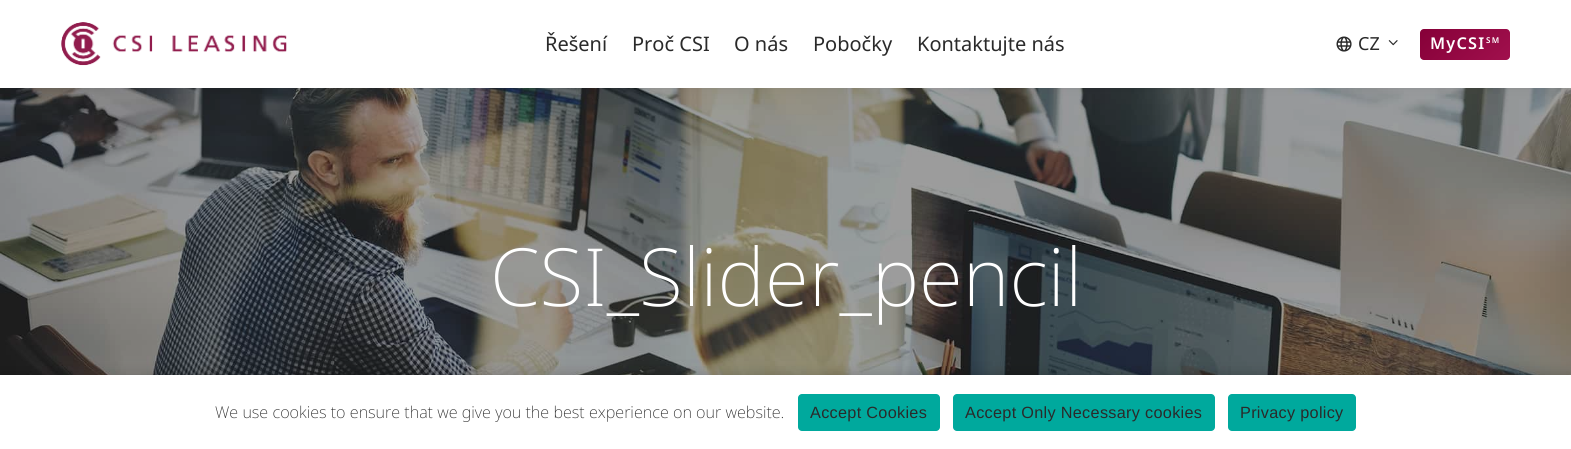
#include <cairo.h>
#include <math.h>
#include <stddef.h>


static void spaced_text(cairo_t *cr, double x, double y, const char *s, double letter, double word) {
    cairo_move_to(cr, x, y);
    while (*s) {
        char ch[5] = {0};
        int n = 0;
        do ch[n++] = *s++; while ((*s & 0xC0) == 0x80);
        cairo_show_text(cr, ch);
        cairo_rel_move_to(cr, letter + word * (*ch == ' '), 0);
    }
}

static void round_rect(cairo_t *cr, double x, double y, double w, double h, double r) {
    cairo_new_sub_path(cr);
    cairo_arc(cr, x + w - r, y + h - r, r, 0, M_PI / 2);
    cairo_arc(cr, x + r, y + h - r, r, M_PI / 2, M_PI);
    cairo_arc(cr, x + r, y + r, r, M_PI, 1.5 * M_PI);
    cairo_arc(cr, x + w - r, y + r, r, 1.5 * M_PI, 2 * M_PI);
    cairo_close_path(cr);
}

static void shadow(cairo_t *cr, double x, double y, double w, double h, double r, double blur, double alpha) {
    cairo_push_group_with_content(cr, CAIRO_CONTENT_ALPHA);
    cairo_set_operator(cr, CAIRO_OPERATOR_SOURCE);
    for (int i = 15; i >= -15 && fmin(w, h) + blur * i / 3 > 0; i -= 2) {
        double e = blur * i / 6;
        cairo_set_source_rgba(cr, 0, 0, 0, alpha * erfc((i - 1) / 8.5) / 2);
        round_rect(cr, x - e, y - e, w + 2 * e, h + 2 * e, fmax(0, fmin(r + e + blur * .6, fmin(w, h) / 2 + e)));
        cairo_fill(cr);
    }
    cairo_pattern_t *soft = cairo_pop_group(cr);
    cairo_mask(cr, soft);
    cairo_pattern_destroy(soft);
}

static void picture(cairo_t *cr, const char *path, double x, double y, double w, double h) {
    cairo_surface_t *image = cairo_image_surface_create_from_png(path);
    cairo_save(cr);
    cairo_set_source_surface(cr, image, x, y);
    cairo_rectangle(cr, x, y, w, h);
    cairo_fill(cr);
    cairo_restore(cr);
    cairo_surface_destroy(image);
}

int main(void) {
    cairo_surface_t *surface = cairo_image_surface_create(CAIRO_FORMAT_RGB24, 1571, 449);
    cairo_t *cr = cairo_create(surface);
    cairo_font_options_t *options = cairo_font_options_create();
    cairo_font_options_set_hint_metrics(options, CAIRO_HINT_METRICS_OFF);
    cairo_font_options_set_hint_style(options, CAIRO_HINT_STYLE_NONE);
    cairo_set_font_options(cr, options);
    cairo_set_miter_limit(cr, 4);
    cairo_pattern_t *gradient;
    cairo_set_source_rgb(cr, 1, 1, 1);
    cairo_paint(cr);
    picture(cr, "img4.png", 0, 88, 1571, 287);
    cairo_set_source_rgb(cr, 0, 0, 0);
    shadow(cr, 3, 3, 1566, 82, 0, 6, 0.1);
    cairo_set_source_rgb(cr, 1, 1, 1);
    cairo_rectangle(cr, 0, 0, 1571, 88);
    cairo_fill(cr);
    picture(cr, "img1.png", 61, 22, 226, 44);
    cairo_select_font_face(cr, "Noto Sans", CAIRO_FONT_SLANT_NORMAL, CAIRO_FONT_WEIGHT_NORMAL);
    cairo_set_font_size(cr, 20);
    cairo_set_source_rgb(cr, 0.165, 0.165, 0.165);
    cairo_move_to(cr, 545, 51);
    cairo_show_text(cr, "Řešení");
    cairo_move_to(cr, 632, 51);
    cairo_show_text(cr, "Proč CSI");
    cairo_move_to(cr, 734, 51);
    cairo_show_text(cr, "O nás");
    cairo_move_to(cr, 813, 51);
    cairo_show_text(cr, "Pobočky");
    cairo_move_to(cr, 917, 51);
    cairo_show_text(cr, "Kontaktujte nás");
    picture(cr, "img2.png", 1336, 36, 16, 16);
    cairo_set_font_size(cr, 18);
    cairo_move_to(cr, 1358, 50);
    cairo_show_text(cr, "CZ");
    picture(cr, "img3.png", 1388, 40, 10, 6);
    gradient = cairo_pattern_create_linear(1435, 14, 1495, 75);
    cairo_pattern_add_color_stop_rgba(gradient, 0, 0.525, 0, 0.22, 1);
    cairo_pattern_add_color_stop_rgba(gradient, 1, 0.631, 0.063, 0.302, 1);
    cairo_set_source(cr, gradient);
    cairo_pattern_destroy(gradient);
    round_rect(cr, 1420, 29, 90, 31, 4);
    cairo_fill(cr);
    cairo_select_font_face(cr, "Noto Sans SemiBold", CAIRO_FONT_SLANT_NORMAL, CAIRO_FONT_WEIGHT_NORMAL);
    cairo_set_font_size(cr, 16.25);
    cairo_set_source_rgb(cr, 1, 1, 1);
    spaced_text(cr, 1430, 49, "MyCSI", 1.25, 0);
    cairo_set_font_size(cr, 8);
    spaced_text(cr, 1486, 43, "SM", 1.25, 0);
    cairo_select_font_face(cr, "Noto Sans ExtraLight", CAIRO_FONT_SLANT_NORMAL, CAIRO_FONT_WEIGHT_NORMAL);
    cairo_set_font_size(cr, 80.25);
    cairo_move_to(cr, 490, 306);
    cairo_show_text(cr, "CSI_Slider_pencil");
    cairo_set_source_rgb(cr, 0, 0, 0);
    shadow(cr, 0, 375, 1571, 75, 0, 7.5, 0.2);
    cairo_set_source_rgb(cr, 1, 1, 1);
    cairo_rectangle(cr, 0, 375, 1571, 74);
    cairo_fill(cr);
    cairo_set_font_size(cr, 16.25);
    cairo_set_source_rgb(cr, 0.165, 0.165, 0.165);
    cairo_move_to(cr, 215, 418);
    cairo_show_text(cr, "We use cookies to ensure that we give you the best experience on our website.");
    cairo_set_source_rgb(cr, 0, 0.663, 0.616);
    round_rect(cr, 798, 394, 142, 37, 4);
    cairo_fill(cr);
    cairo_select_font_face(cr, "Liberation Sans", CAIRO_FONT_SLANT_NORMAL, CAIRO_FONT_WEIGHT_NORMAL);
    cairo_set_source_rgb(cr, 0.165, 0.165, 0.165);
    spaced_text(cr, 810, 418, "Accept Cookies", 0.3, 0);
    cairo_set_source_rgb(cr, 0, 0.663, 0.616);
    round_rect(cr, 953, 394, 262, 37, 4);
    cairo_fill(cr);
    cairo_set_source_rgb(cr, 0.165, 0.165, 0.165);
    spaced_text(cr, 965, 418, "Accept Only Necessary cookies", 0.3, 0);
    cairo_set_source_rgb(cr, 0, 0.663, 0.616);
    round_rect(cr, 1228, 394, 128, 37, 4);
    cairo_fill(cr);
    cairo_set_source_rgb(cr, 0.165, 0.165, 0.165);
    spaced_text(cr, 1240, 418, "Privacy policy", 0.3, 0);
    cairo_surface_write_to_png(surface, "page.png");
    cairo_font_options_destroy(options);
    cairo_destroy(cr);
    cairo_surface_destroy(surface);
    return 0;
}
